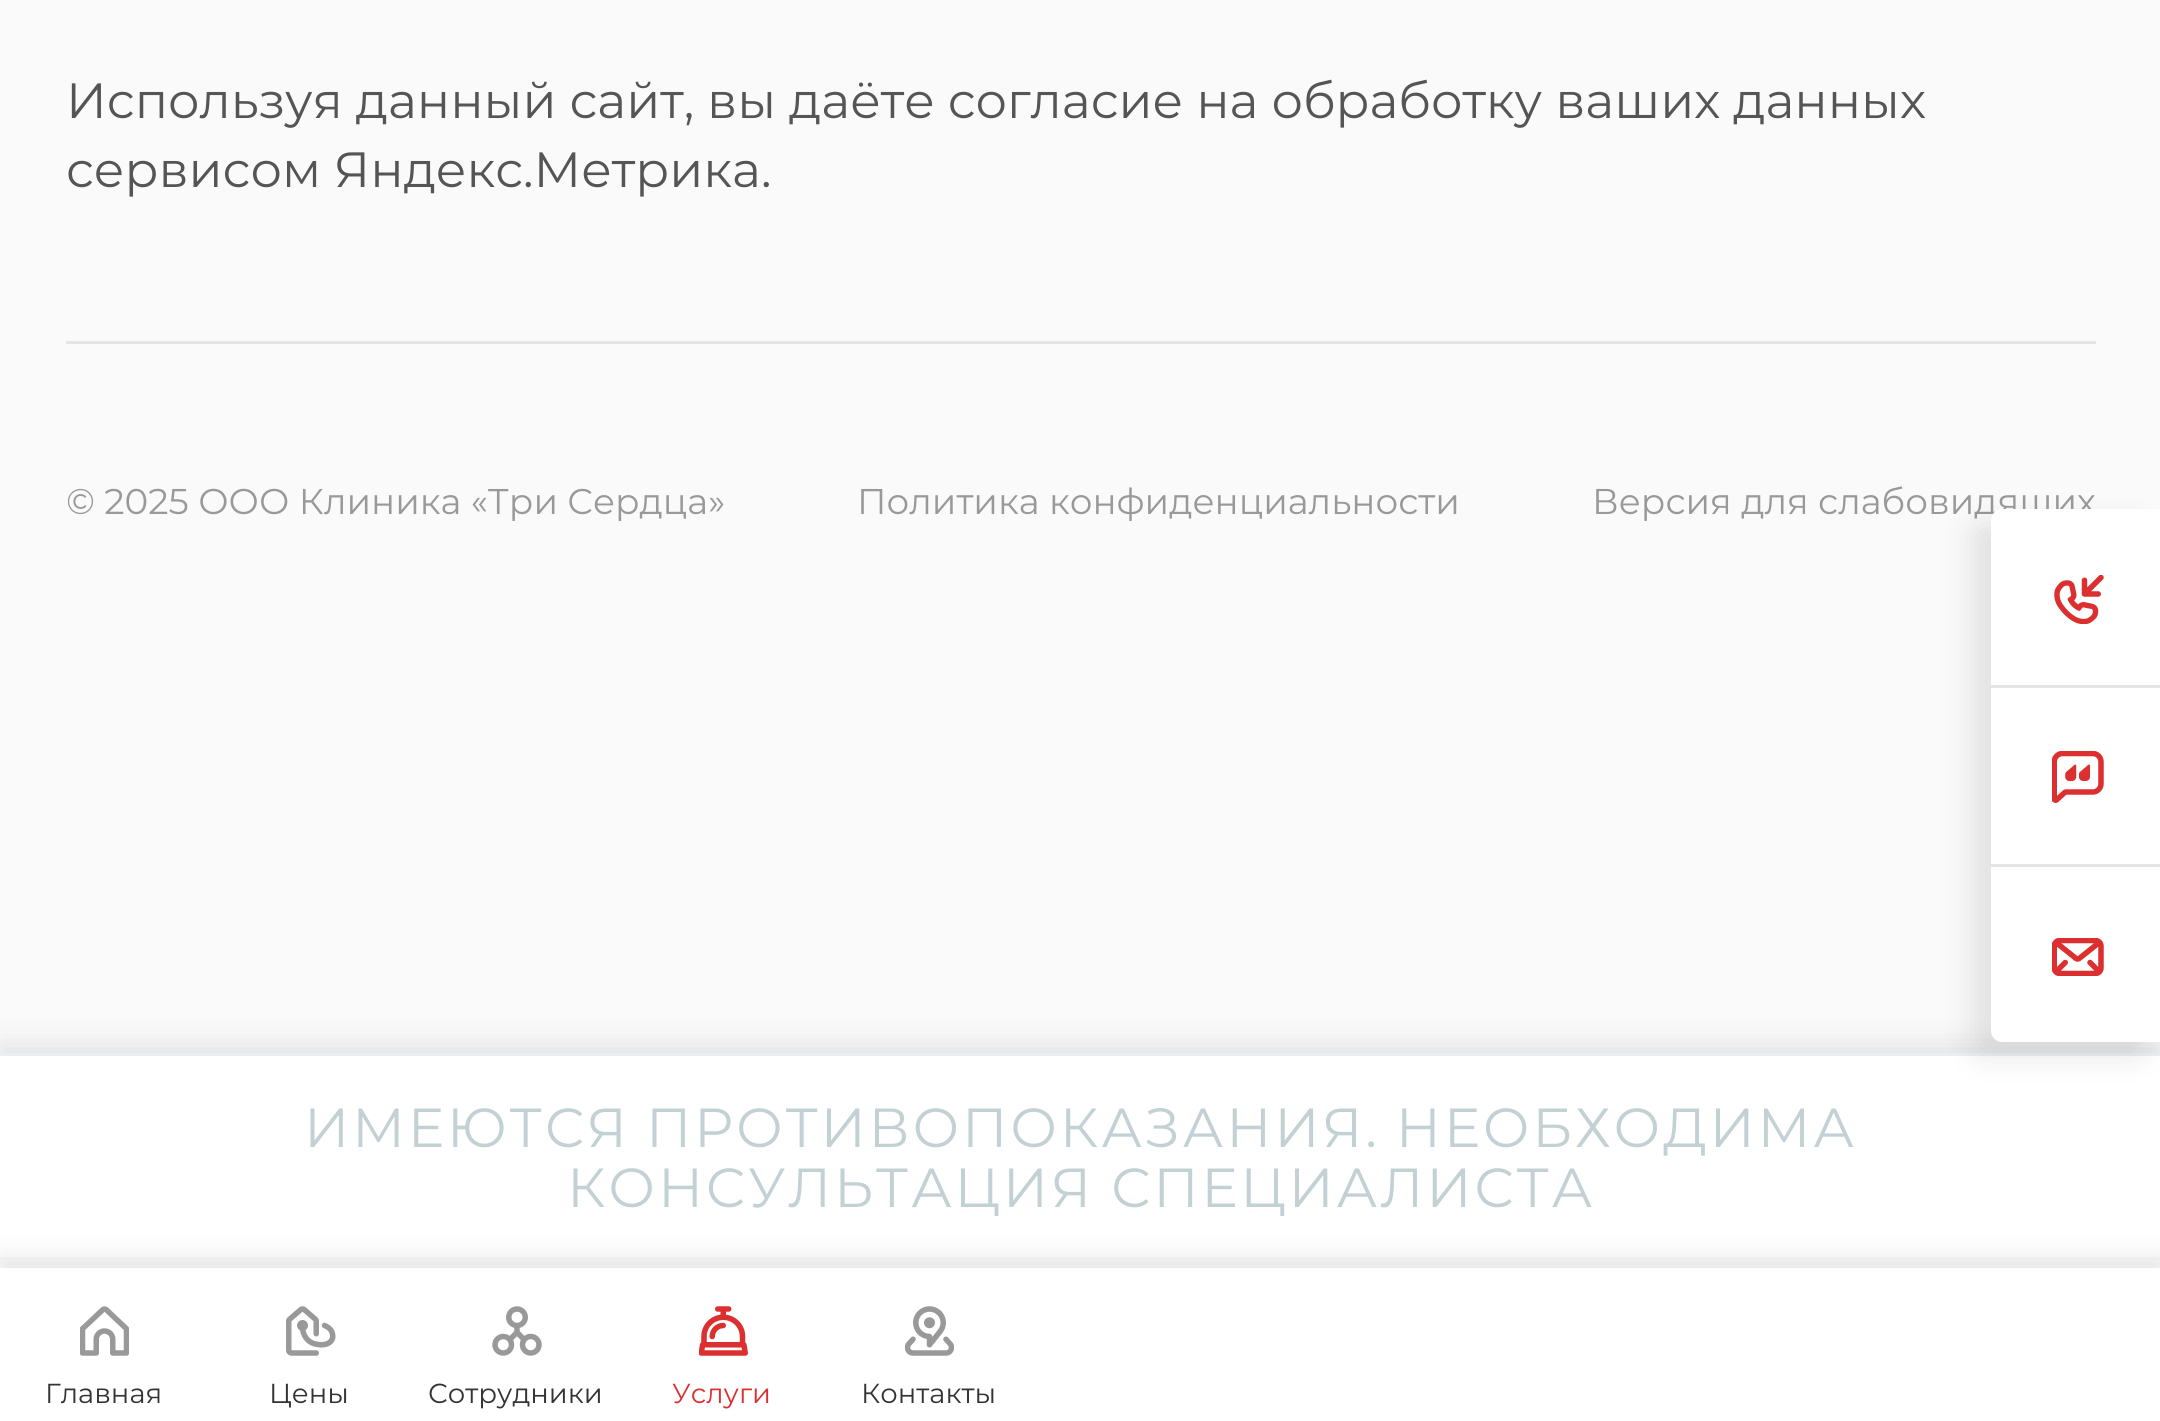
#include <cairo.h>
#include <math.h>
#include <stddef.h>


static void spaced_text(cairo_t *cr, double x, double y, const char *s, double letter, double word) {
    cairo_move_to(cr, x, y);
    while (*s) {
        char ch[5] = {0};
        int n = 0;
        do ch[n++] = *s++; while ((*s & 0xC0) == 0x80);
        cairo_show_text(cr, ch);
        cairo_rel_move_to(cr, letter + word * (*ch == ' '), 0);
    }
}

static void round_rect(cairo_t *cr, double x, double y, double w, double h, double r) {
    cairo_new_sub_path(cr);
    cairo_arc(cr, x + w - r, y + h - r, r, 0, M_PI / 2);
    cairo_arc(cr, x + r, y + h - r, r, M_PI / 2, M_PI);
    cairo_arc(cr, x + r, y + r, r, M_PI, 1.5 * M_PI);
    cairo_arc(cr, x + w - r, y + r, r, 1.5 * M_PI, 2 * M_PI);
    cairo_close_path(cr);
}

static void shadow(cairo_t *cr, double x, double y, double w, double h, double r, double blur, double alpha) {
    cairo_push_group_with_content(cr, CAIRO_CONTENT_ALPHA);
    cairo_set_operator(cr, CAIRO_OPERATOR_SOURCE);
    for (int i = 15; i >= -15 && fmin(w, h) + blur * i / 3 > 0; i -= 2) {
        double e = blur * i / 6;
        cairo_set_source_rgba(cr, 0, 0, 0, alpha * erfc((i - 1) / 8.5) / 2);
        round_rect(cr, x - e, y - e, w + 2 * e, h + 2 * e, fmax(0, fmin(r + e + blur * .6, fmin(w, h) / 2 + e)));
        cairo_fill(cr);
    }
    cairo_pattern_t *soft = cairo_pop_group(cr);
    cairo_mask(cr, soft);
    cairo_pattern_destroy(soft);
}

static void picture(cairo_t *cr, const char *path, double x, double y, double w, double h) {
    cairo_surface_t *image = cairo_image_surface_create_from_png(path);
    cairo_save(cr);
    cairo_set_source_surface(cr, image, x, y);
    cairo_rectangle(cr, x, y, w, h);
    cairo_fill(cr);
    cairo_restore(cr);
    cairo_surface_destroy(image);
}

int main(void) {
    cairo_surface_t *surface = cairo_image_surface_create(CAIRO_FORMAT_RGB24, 2160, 1421);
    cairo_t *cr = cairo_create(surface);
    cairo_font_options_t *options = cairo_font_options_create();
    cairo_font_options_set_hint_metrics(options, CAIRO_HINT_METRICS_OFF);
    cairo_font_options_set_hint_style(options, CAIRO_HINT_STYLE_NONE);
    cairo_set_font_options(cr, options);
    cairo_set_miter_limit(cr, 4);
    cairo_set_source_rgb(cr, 1, 1, 1);
    cairo_paint(cr);
    cairo_set_source_rgb(cr, 0.98, 0.98, 0.98);
    cairo_rectangle(cr, 0, 0, 2160, 1053);
    cairo_fill(cr);
    cairo_select_font_face(cr, "Montserrat", CAIRO_FONT_SLANT_NORMAL, CAIRO_FONT_WEIGHT_NORMAL);
    cairo_set_font_size(cr, 49.5);
    cairo_set_source_rgb(cr, 0.333, 0.333, 0.333);
    cairo_move_to(cr, 66, 118);
    cairo_show_text(cr, "Используя данный сайт, вы даёте согласие на обработку ваших данных");
    cairo_move_to(cr, 66, 187);
    cairo_show_text(cr, "сервисом Яндекс.Метрика.");
    cairo_set_source_rgb(cr, 0.898, 0.898, 0.898);
    cairo_rectangle(cr, 66, 341, 2030, 3);
    cairo_fill(cr);
    cairo_set_font_size(cr, 35.75);
    cairo_set_source_rgb(cr, 0.6, 0.6, 0.6);
    cairo_move_to(cr, 66, 514);
    cairo_show_text(cr, "© 2025 ООО Клиника «Три Сердца»");
    cairo_move_to(cr, 857, 514);
    cairo_show_text(cr, "Политика конфиденциальности");
    cairo_move_to(cr, 1592, 514);
    cairo_show_text(cr, "Версия для слабовидящих");
    cairo_set_source_rgb(cr, 0, 0, 0);
    shadow(cr, 0, 1045, 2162, 204, 0, 14, 0.1);
    cairo_set_source_rgb(cr, 1, 1, 1);
    cairo_rectangle(cr, 0, 1056, 2160, 201);
    cairo_fill(cr);
    cairo_set_source_rgb(cr, 0.918, 0.937, 0.945);
    cairo_rectangle(cr, 0, 1053, 2160, 3);
    cairo_fill(cr);
    cairo_set_source_rgb(cr, 0, 0, 0);
    shadow(cr, 1972, 523, 173, 533, 11, 15, 0.1);
    cairo_set_source_rgb(cr, 1, 1, 1);
    cairo_new_path(cr);
    cairo_move_to(cr, 2002, 509);
    cairo_line_to(cr, 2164, 509);
    cairo_line_to(cr, 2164, 1042);
    cairo_line_to(cr, 2002, 1042);
    cairo_curve_to(cr, 1996, 1042, 1991, 1037, 1991, 1031);
    cairo_line_to(cr, 1991, 520);
    cairo_curve_to(cr, 1991, 514, 1996, 509, 2002, 509);
    cairo_close_path(cr);
    cairo_fill(cr);
    picture(cr, "img1.png", 2054, 575, 50, 49);
    cairo_set_source_rgb(cr, 0.898, 0.898, 0.898);
    cairo_rectangle(cr, 1991, 685, 169, 3);
    cairo_fill(cr);
    picture(cr, "img2.png", 2052, 751, 52, 52);
    cairo_rectangle(cr, 1991, 864, 169, 3);
    cairo_fill(cr);
    picture(cr, "img3.png", 2052, 938, 52, 38);
    cairo_set_font_size(cr, 55);
    cairo_set_source_rgb(cr, 0.765, 0.82, 0.835);
    spaced_text(cr, 304, 1147, "ИМЕЮТСЯ ПРОТИВОПОКАЗАНИЯ. НЕОБХОДИМА", 2.75, -1);
    spaced_text(cr, 567, 1207, "КОНСУЛЬТАЦИЯ СПЕЦИАЛИСТА", 2.75, 0);
    cairo_set_source_rgb(cr, 0, 0, 0);
    shadow(cr, 0, 1260, 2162, 154, 0, 14, 0.1);
    cairo_set_source_rgb(cr, 1, 1, 1);
    cairo_rectangle(cr, 0, 1268, 2160, 153);
    cairo_fill(cr);
    picture(cr, "img4.png", 80, 1306, 49, 50);
    cairo_set_font_size(cr, 27.5);
    cairo_set_source_rgb(cr, 0.2, 0.2, 0.2);
    cairo_move_to(cr, 45, 1403);
    cairo_show_text(cr, "Главная");
    picture(cr, "img5.png", 286, 1306, 50, 50);
    cairo_move_to(cr, 269, 1403);
    cairo_show_text(cr, "Цены");
    picture(cr, "img6.png", 492, 1306, 50, 50);
    cairo_move_to(cr, 428, 1403);
    cairo_show_text(cr, "Сотрудники");
    picture(cr, "img7.png", 699, 1306, 49, 50);
    cairo_set_source_rgb(cr, 0.863, 0.184, 0.184);
    cairo_move_to(cr, 672, 1403);
    cairo_show_text(cr, "Услуги");
    picture(cr, "img8.png", 905, 1306, 49, 50);
    cairo_set_source_rgb(cr, 0.2, 0.2, 0.2);
    cairo_move_to(cr, 861, 1403);
    cairo_show_text(cr, "Контакты");
    cairo_surface_write_to_png(surface, "page.png");
    cairo_font_options_destroy(options);
    cairo_destroy(cr);
    cairo_surface_destroy(surface);
    return 0;
}
